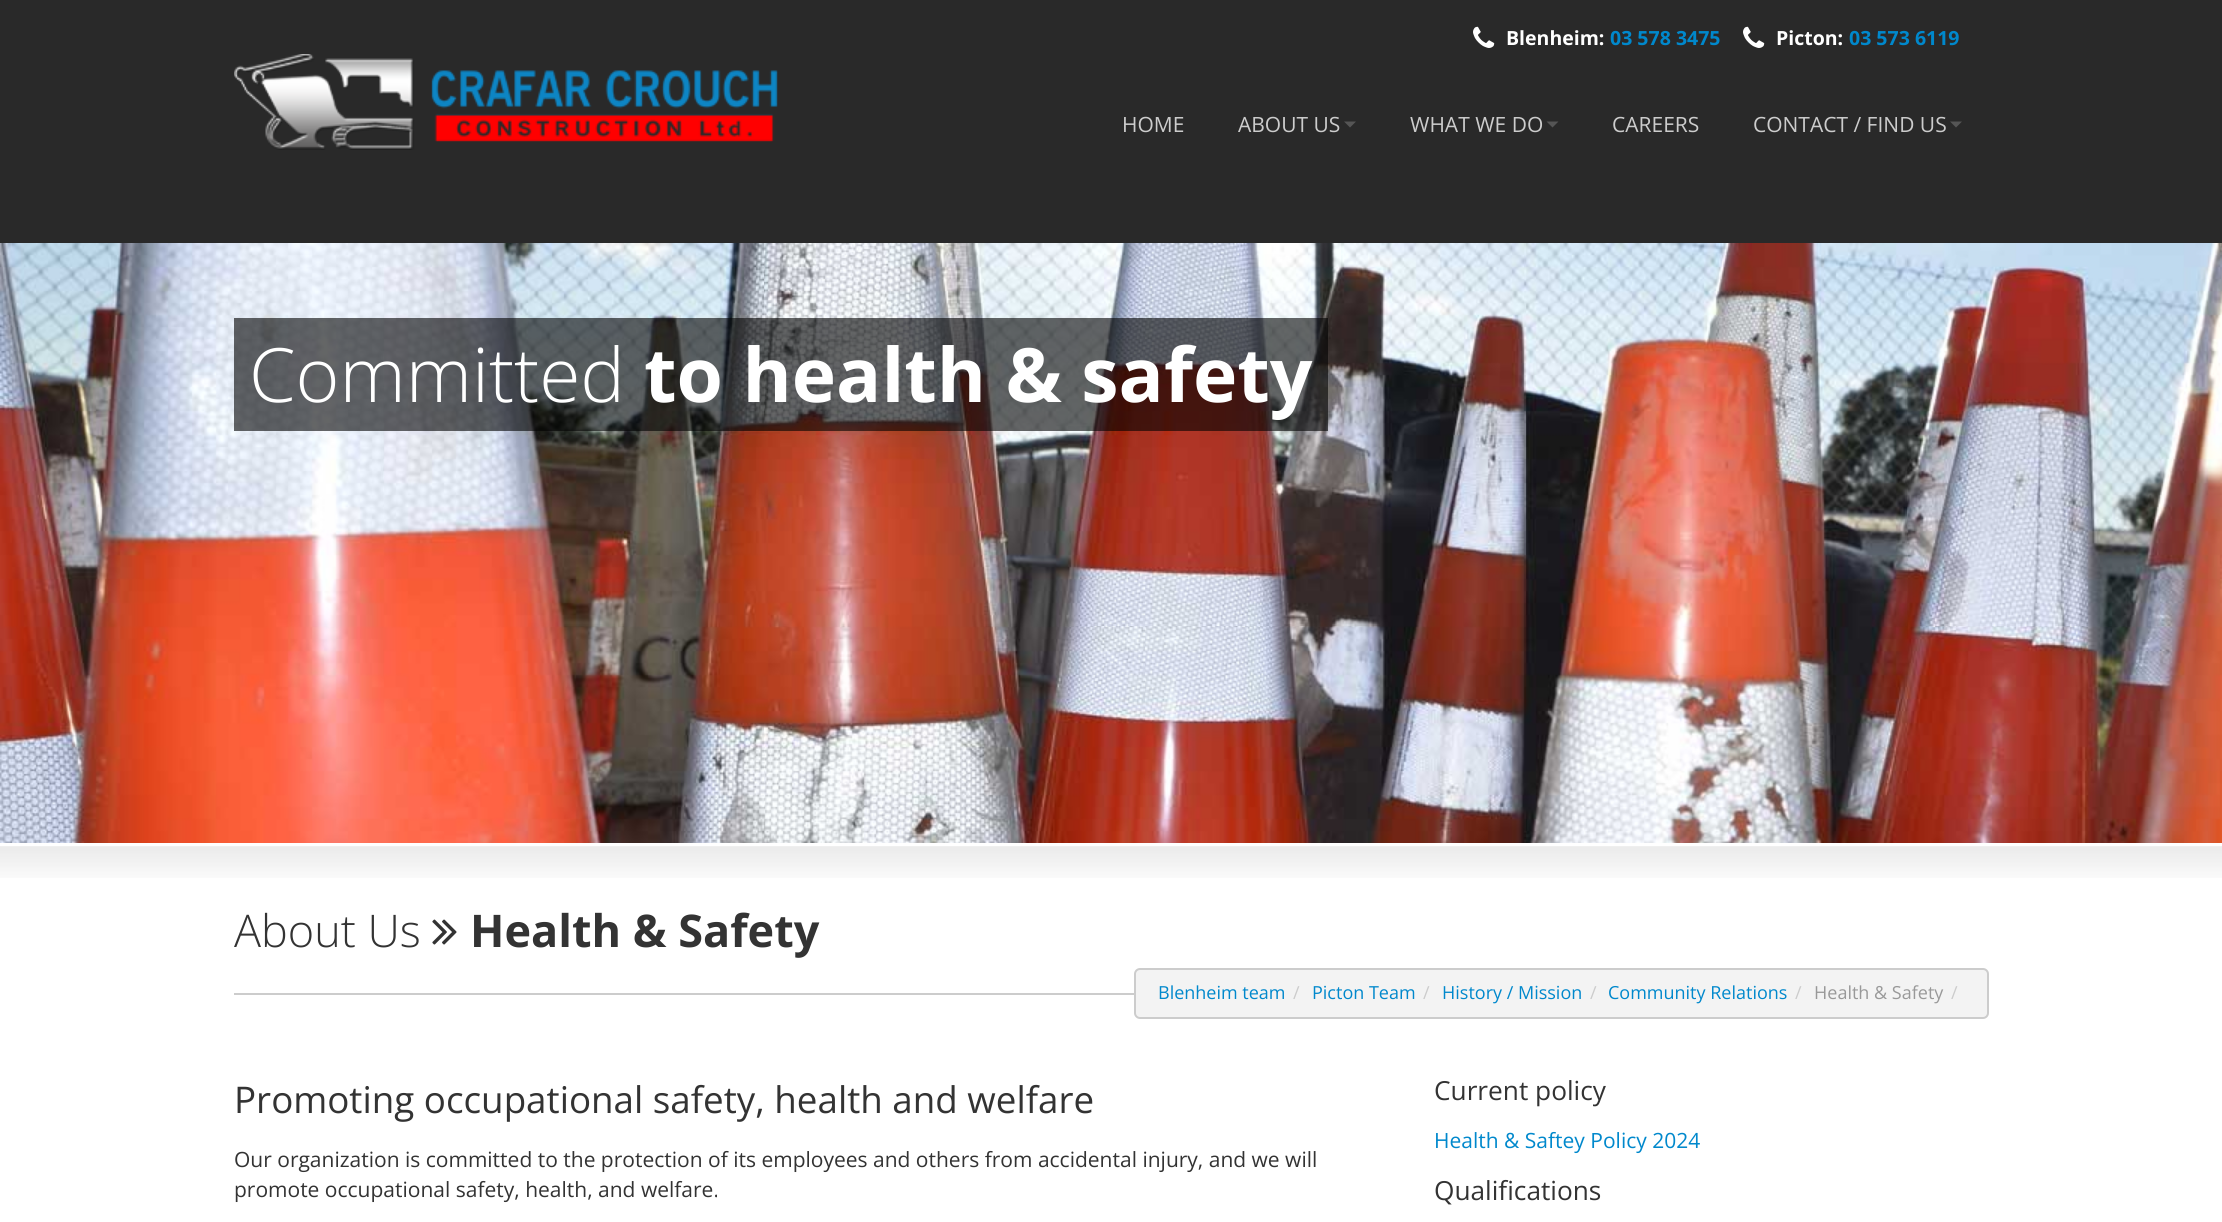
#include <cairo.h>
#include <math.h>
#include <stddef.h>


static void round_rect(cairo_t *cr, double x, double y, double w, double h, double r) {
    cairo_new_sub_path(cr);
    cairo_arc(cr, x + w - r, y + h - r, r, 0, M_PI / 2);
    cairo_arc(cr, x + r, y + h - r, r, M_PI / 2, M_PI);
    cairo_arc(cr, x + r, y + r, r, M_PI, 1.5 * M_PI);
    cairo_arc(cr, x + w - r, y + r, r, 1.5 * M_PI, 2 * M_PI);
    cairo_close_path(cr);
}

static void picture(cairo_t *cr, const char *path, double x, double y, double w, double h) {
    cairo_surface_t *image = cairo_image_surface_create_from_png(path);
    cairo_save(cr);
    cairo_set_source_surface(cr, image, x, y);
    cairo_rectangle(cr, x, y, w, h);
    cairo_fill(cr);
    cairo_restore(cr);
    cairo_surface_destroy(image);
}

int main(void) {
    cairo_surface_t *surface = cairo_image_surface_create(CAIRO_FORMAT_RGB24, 2222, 1222);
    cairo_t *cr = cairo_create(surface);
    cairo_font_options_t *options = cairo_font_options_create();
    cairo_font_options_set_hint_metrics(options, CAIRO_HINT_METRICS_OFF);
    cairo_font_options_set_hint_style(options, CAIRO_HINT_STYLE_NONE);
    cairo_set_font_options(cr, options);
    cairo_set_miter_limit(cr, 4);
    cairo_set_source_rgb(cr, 1, 1, 1);
    cairo_paint(cr);
    cairo_set_source_rgb(cr, 0.161, 0.161, 0.161);
    cairo_rectangle(cr, 0, 0, 2222, 243);
    cairo_fill(cr);
    picture(cr, "img1.png", 1473, 26, 22, 22);
    cairo_select_font_face(cr, "Open Sans", CAIRO_FONT_SLANT_NORMAL, CAIRO_FONT_WEIGHT_BOLD);
    cairo_set_font_size(cr, 19.5);
    cairo_set_source_rgb(cr, 1, 1, 1);
    cairo_move_to(cr, 1506, 45);
    cairo_show_text(cr, "Blenheim:");
    cairo_set_source_rgb(cr, 0, 0.533, 0.8);
    cairo_move_to(cr, 1610, 45);
    cairo_show_text(cr, "03 578 3475");
    picture(cr, "img1.png", 1743, 26, 22, 22);
    cairo_set_source_rgb(cr, 1, 1, 1);
    cairo_move_to(cr, 1776, 45);
    cairo_show_text(cr, "Picton:");
    cairo_set_source_rgb(cr, 0, 0.533, 0.8);
    cairo_move_to(cr, 1849, 45);
    cairo_show_text(cr, "03 573 6119");
    picture(cr, "img2.png", 234, 54, 544, 96);
    cairo_select_font_face(cr, "Open Sans", CAIRO_FONT_SLANT_NORMAL, CAIRO_FONT_WEIGHT_NORMAL);
    cairo_set_font_size(cr, 21);
    cairo_set_source_rgb(cr, 0.8, 0.8, 0.8);
    cairo_move_to(cr, 1122, 132);
    cairo_show_text(cr, "HOME");
    cairo_move_to(cr, 1238, 132);
    cairo_show_text(cr, "ABOUT US");
    cairo_set_source_rgb(cr, 0.333, 0.333, 0.333);
    cairo_new_path(cr);
    cairo_move_to(cr, 1344, 121.5);
    cairo_line_to(cr, 1356, 121.5);
    cairo_line_to(cr, 1350, 127.5);
    cairo_close_path(cr);
    cairo_fill(cr);
    cairo_set_source_rgb(cr, 0.8, 0.8, 0.8);
    cairo_move_to(cr, 1410, 132);
    cairo_show_text(cr, "WHAT WE DO");
    cairo_set_source_rgb(cr, 0.333, 0.333, 0.333);
    cairo_new_path(cr);
    cairo_move_to(cr, 1546.5, 121.5);
    cairo_line_to(cr, 1558.5, 121.5);
    cairo_line_to(cr, 1552.5, 127.5);
    cairo_close_path(cr);
    cairo_fill(cr);
    cairo_set_source_rgb(cr, 0.8, 0.8, 0.8);
    cairo_move_to(cr, 1612, 132);
    cairo_show_text(cr, "CAREERS");
    cairo_move_to(cr, 1753, 132);
    cairo_show_text(cr, "CONTACT / FIND US");
    cairo_set_source_rgb(cr, 0.333, 0.333, 0.333);
    cairo_new_path(cr);
    cairo_move_to(cr, 1950, 121.5);
    cairo_line_to(cr, 1962, 121.5);
    cairo_line_to(cr, 1956, 127.5);
    cairo_close_path(cr);
    cairo_fill(cr);
    picture(cr, "img3.png", 0, 243, 2222, 600);
    cairo_set_source_rgba(cr, 0, 0, 0, 0.6);
    cairo_rectangle(cr, 234, 318, 1094, 113);
    cairo_fill(cr);
    cairo_select_font_face(cr, "Open Sans Light", CAIRO_FONT_SLANT_NORMAL, CAIRO_FONT_WEIGHT_NORMAL);
    cairo_set_font_size(cr, 75);
    cairo_set_source_rgb(cr, 1, 1, 1);
    cairo_move_to(cr, 249, 402);
    cairo_show_text(cr, "Committed");
    cairo_select_font_face(cr, "Open Sans", CAIRO_FONT_SLANT_NORMAL, CAIRO_FONT_WEIGHT_BOLD);
    cairo_move_to(cr, 644, 402);
    cairo_show_text(cr, "to health & safety");
    picture(cr, "img4.png", 0, 846, 2222, 32);
    cairo_set_source_rgb(cr, 0.8, 0.8, 0.8);
    cairo_rectangle(cr, 234, 993, 900, 2);
    cairo_fill(cr);
    cairo_select_font_face(cr, "Open Sans Light", CAIRO_FONT_SLANT_NORMAL, CAIRO_FONT_WEIGHT_NORMAL);
    cairo_set_font_size(cr, 45);
    cairo_set_source_rgb(cr, 0.2, 0.2, 0.2);
    cairo_move_to(cr, 234, 947);
    cairo_show_text(cr, "About Us");
    picture(cr, "img5.png", 432, 919, 25, 26);
    cairo_select_font_face(cr, "Open Sans", CAIRO_FONT_SLANT_NORMAL, CAIRO_FONT_WEIGHT_BOLD);
    cairo_move_to(cr, 470, 947);
    cairo_show_text(cr, "Health & Safety");
    cairo_set_source_rgb(cr, 0.953, 0.953, 0.953);
    round_rect(cr, 1135, 969, 853, 49, 5);
    cairo_fill_preserve(cr);
    cairo_set_source_rgb(cr, 0.8, 0.8, 0.8);
    cairo_stroke(cr);
    cairo_select_font_face(cr, "Open Sans", CAIRO_FONT_SLANT_NORMAL, CAIRO_FONT_WEIGHT_NORMAL);
    cairo_set_font_size(cr, 18);
    cairo_set_source_rgb(cr, 0, 0.533, 0.8);
    cairo_move_to(cr, 1158, 999);
    cairo_show_text(cr, "Blenheim team");
    cairo_set_source_rgb(cr, 0.8, 0.8, 0.8);
    cairo_move_to(cr, 1293, 999);
    cairo_show_text(cr, "/");
    cairo_set_source_rgb(cr, 0, 0.533, 0.8);
    cairo_move_to(cr, 1312, 999);
    cairo_show_text(cr, "Picton Team");
    cairo_set_source_rgb(cr, 0.8, 0.8, 0.8);
    cairo_move_to(cr, 1423, 999);
    cairo_show_text(cr, "/");
    cairo_set_source_rgb(cr, 0, 0.533, 0.8);
    cairo_move_to(cr, 1442, 999);
    cairo_show_text(cr, "History / Mission");
    cairo_set_source_rgb(cr, 0.8, 0.8, 0.8);
    cairo_move_to(cr, 1590, 999);
    cairo_show_text(cr, "/");
    cairo_set_source_rgb(cr, 0, 0.533, 0.8);
    cairo_move_to(cr, 1608, 999);
    cairo_show_text(cr, "Community Relations");
    cairo_set_source_rgb(cr, 0.8, 0.8, 0.8);
    cairo_move_to(cr, 1795, 999);
    cairo_show_text(cr, "/");
    cairo_set_source_rgb(cr, 0.6, 0.6, 0.6);
    cairo_move_to(cr, 1814, 999);
    cairo_show_text(cr, "Health & Safety");
    cairo_set_source_rgb(cr, 0.8, 0.8, 0.8);
    cairo_move_to(cr, 1951, 999);
    cairo_show_text(cr, "/");
    cairo_set_font_size(cr, 36.75);
    cairo_set_source_rgb(cr, 0.2, 0.2, 0.2);
    cairo_move_to(cr, 234, 1113);
    cairo_show_text(cr, "Promoting occupational safety, health and welfare");
    cairo_set_font_size(cr, 21);
    cairo_move_to(cr, 234, 1167);
    cairo_show_text(cr, "Our organization is committed to the protection of its employees and others from accidental injury, and we will");
    cairo_move_to(cr, 234, 1197);
    cairo_show_text(cr, "promote occupational safety, health, and welfare.");
    cairo_set_font_size(cr, 26.25);
    cairo_move_to(cr, 1434, 1100);
    cairo_show_text(cr, "Current policy");
    cairo_set_font_size(cr, 21);
    cairo_set_source_rgb(cr, 0, 0.533, 0.8);
    cairo_move_to(cr, 1434, 1148);
    cairo_show_text(cr, "Health & Saftey Policy 2024");
    cairo_set_font_size(cr, 26.25);
    cairo_set_source_rgb(cr, 0.2, 0.2, 0.2);
    cairo_move_to(cr, 1434, 1200);
    cairo_show_text(cr, "Qualifications");
    cairo_surface_write_to_png(surface, "page.png");
    cairo_font_options_destroy(options);
    cairo_destroy(cr);
    cairo_surface_destroy(surface);
    return 0;
}
